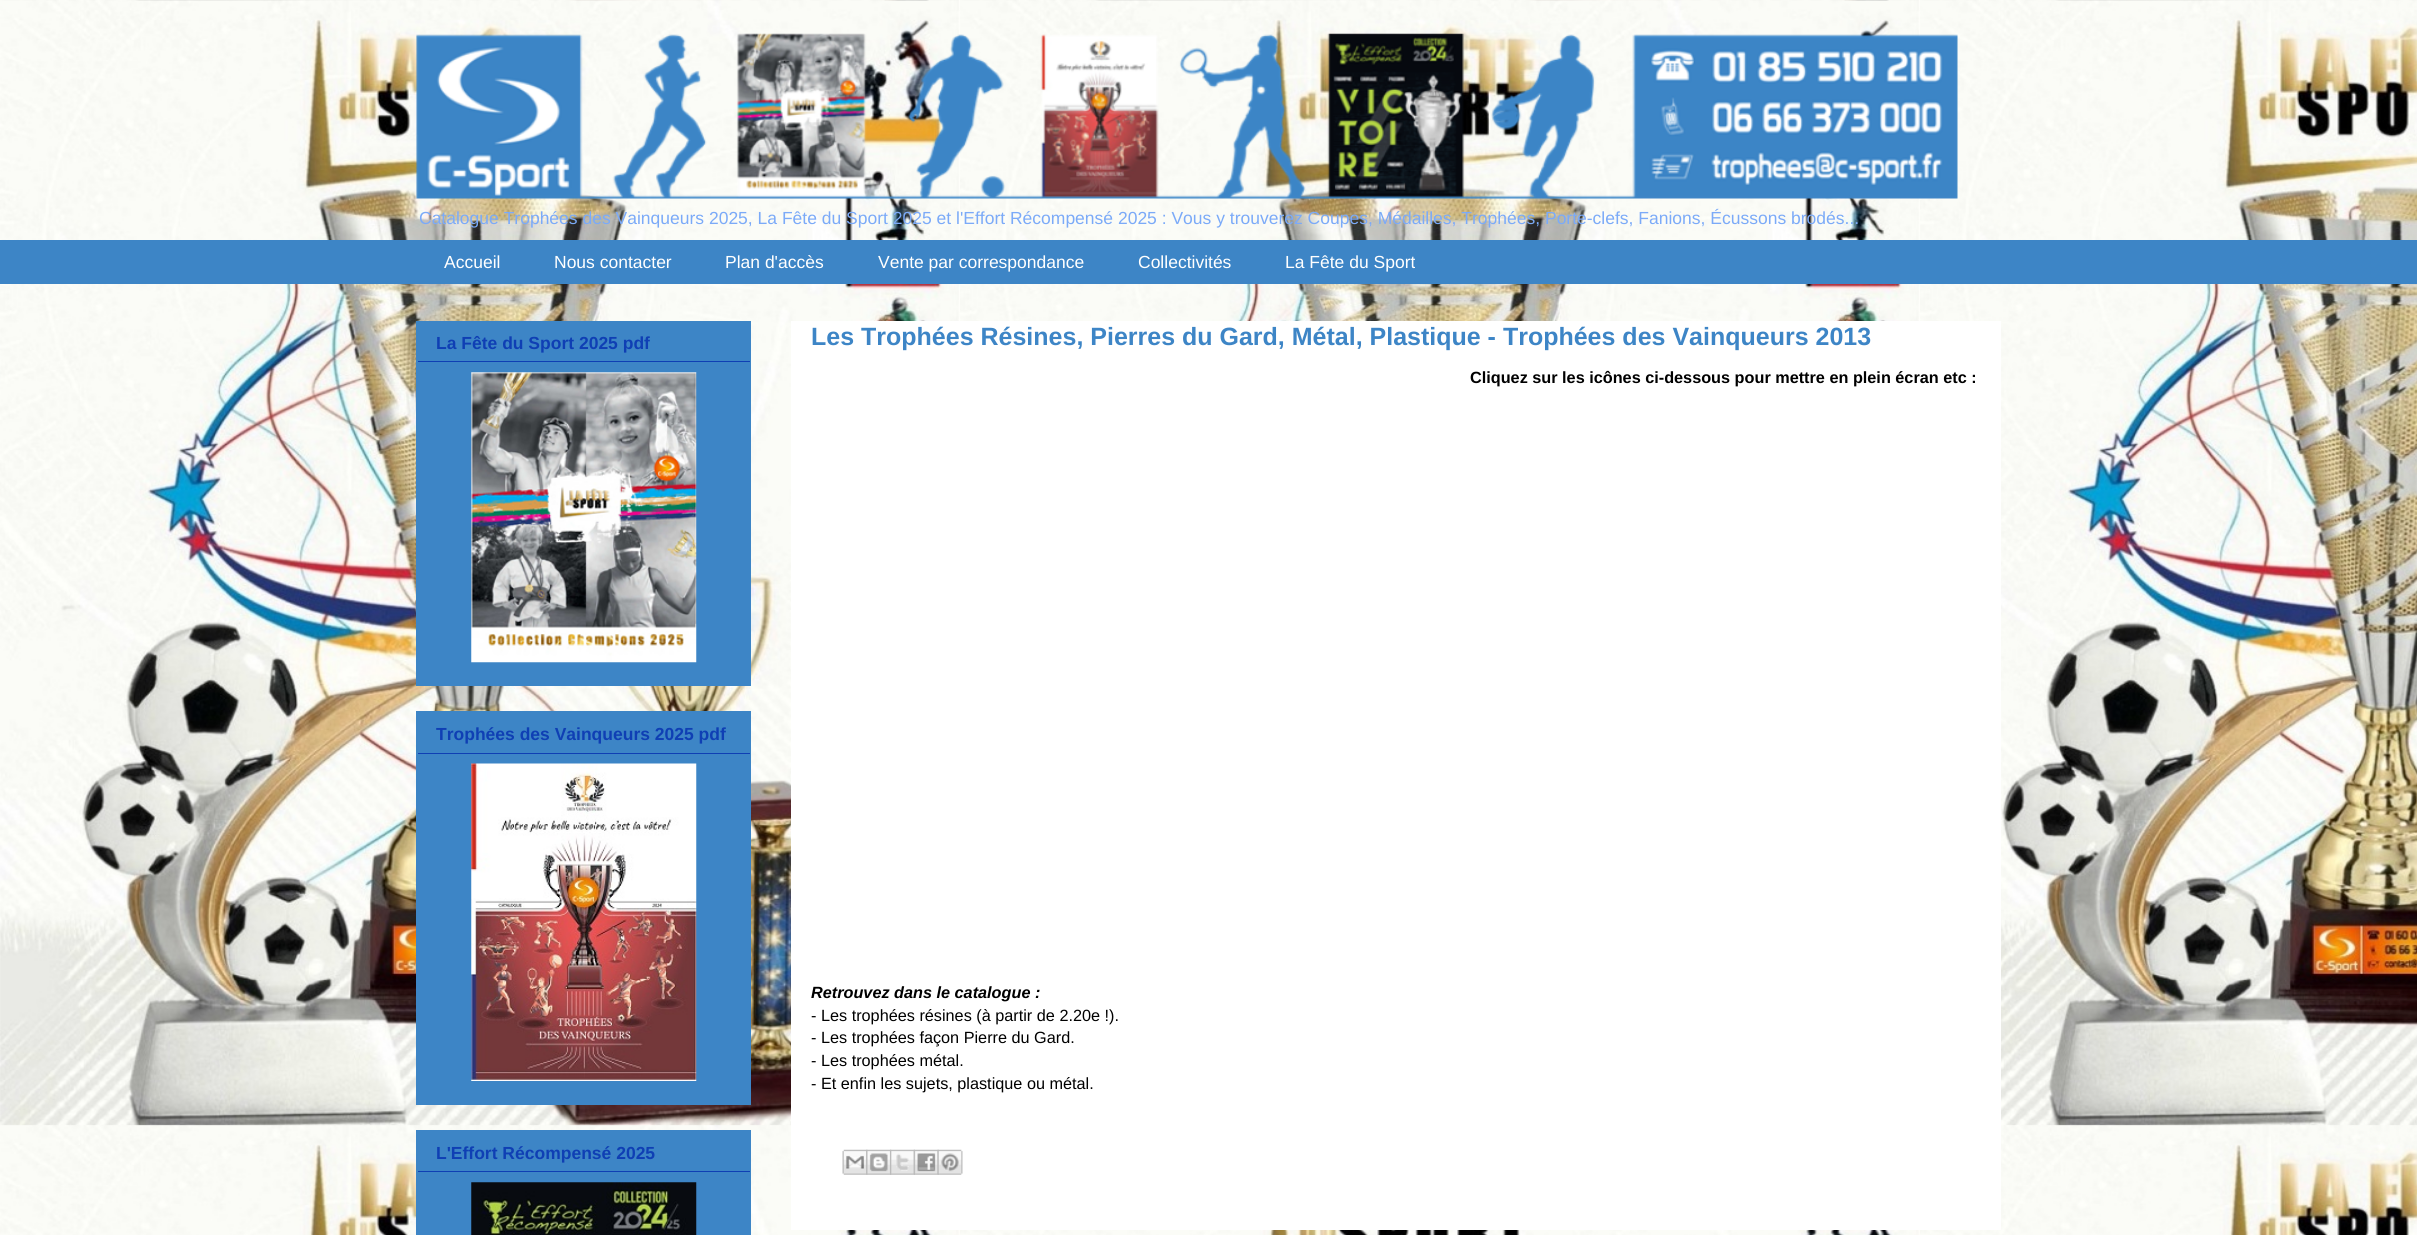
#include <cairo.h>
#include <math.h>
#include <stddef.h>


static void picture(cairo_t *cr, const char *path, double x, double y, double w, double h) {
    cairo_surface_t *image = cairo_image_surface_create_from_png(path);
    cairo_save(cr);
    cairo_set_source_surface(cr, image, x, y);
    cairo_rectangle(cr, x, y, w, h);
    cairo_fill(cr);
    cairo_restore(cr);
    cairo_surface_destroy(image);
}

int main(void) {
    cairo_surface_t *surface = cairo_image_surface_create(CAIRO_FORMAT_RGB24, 2417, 1235);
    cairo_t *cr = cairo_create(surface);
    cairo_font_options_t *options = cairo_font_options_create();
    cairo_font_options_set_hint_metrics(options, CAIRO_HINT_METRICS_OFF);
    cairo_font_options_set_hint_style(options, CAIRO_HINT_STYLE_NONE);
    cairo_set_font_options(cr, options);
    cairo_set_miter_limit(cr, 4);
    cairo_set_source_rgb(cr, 1, 1, 1);
    cairo_paint(cr);
    picture(cr, "img1.png", 0, 0, 2417, 1235);
    picture(cr, "img2.png", 416, 33, 1542, 166);
    cairo_select_font_face(cr, "Liberation Sans", CAIRO_FONT_SLANT_NORMAL, CAIRO_FONT_WEIGHT_NORMAL);
    cairo_set_font_size(cr, 17.5);
    cairo_set_source_rgb(cr, 0.482, 0.667, 0.969);
    cairo_move_to(cr, 419, 224);
    cairo_show_text(cr, "Catalogue Trophées des Vainqueurs 2025, La Fête du Sport 2025 et l'Effort Récompensé 2025 : Vous y trouverez Coupes, Médailles, Trophées, Porte-clefs, Fanions, Écussons brodés...");
    cairo_set_source_rgb(cr, 0.239, 0.522, 0.776);
    cairo_rectangle(cr, 0, 240, 2417, 44);
    cairo_fill(cr);
    cairo_set_source_rgb(cr, 1, 1, 1);
    cairo_move_to(cr, 444, 268);
    cairo_show_text(cr, "Accueil");
    cairo_move_to(cr, 554, 268);
    cairo_show_text(cr, "Nous contacter");
    cairo_move_to(cr, 725, 268);
    cairo_show_text(cr, "Plan d'accès");
    cairo_move_to(cr, 878, 268);
    cairo_show_text(cr, "Vente par correspondance");
    cairo_move_to(cr, 1138, 268);
    cairo_show_text(cr, "Collectivités");
    cairo_move_to(cr, 1285, 268);
    cairo_show_text(cr, "La Fête du Sport");
    cairo_set_source_rgb(cr, 0.239, 0.522, 0.776);
    cairo_rectangle(cr, 416, 321, 335, 365);
    cairo_fill(cr);
    cairo_set_source_rgb(cr, 0.059, 0.247, 0.706);
    cairo_rectangle(cr, 418, 361, 332, 1);
    cairo_fill(cr);
    cairo_select_font_face(cr, "Liberation Sans", CAIRO_FONT_SLANT_NORMAL, CAIRO_FONT_WEIGHT_BOLD);
    cairo_move_to(cr, 436, 349);
    cairo_show_text(cr, "La Fête du Sport 2025 pdf");
    picture(cr, "img3.png", 471, 372, 226, 291);
    cairo_set_source_rgb(cr, 0.239, 0.522, 0.776);
    cairo_rectangle(cr, 416, 711, 335, 394);
    cairo_fill(cr);
    cairo_set_source_rgb(cr, 0.059, 0.247, 0.706);
    cairo_rectangle(cr, 418, 753, 332, 1);
    cairo_fill(cr);
    cairo_move_to(cr, 436, 740);
    cairo_show_text(cr, "Trophées des Vainqueurs 2025 pdf");
    picture(cr, "img4.png", 471, 763, 226, 318);
    cairo_set_source_rgb(cr, 0.239, 0.522, 0.776);
    cairo_rectangle(cr, 416, 1130, 335, 105);
    cairo_fill(cr);
    cairo_set_source_rgb(cr, 0.059, 0.247, 0.706);
    cairo_rectangle(cr, 418, 1171, 332, 1);
    cairo_fill(cr);
    cairo_move_to(cr, 436, 1159);
    cairo_show_text(cr, "L'Effort Récompensé 2025");
    picture(cr, "img5.png", 471, 1182, 226, 53);
    cairo_set_source_rgb(cr, 1, 1, 1);
    cairo_rectangle(cr, 791, 321, 1210, 909);
    cairo_fill(cr);
    cairo_set_font_size(cr, 25);
    cairo_set_source_rgb(cr, 0.239, 0.522, 0.776);
    cairo_move_to(cr, 811, 345);
    cairo_show_text(cr, "Les Trophées Résines, Pierres du Gard, Métal, Plastique - Trophées des Vainqueurs 2013");
    cairo_set_font_size(cr, 16.25);
    cairo_set_source_rgb(cr, 0, 0, 0);
    cairo_move_to(cr, 1470, 383);
    cairo_show_text(cr, "Cliquez sur les icônes ci-dessous pour mettre en plein écran etc :");
    cairo_select_font_face(cr, "Liberation Sans", CAIRO_FONT_SLANT_ITALIC, CAIRO_FONT_WEIGHT_BOLD);
    cairo_move_to(cr, 811, 998);
    cairo_show_text(cr, "Retrouvez dans le catalogue :");
    cairo_select_font_face(cr, "Liberation Sans", CAIRO_FONT_SLANT_NORMAL, CAIRO_FONT_WEIGHT_NORMAL);
    cairo_move_to(cr, 811, 1021);
    cairo_show_text(cr, "- Les trophées résines (à partir de 2.20e !).");
    cairo_move_to(cr, 811, 1043);
    cairo_show_text(cr, "- Les trophées façon Pierre du Gard.");
    cairo_move_to(cr, 811, 1066);
    cairo_show_text(cr, "- Les trophées métal.");
    cairo_move_to(cr, 811, 1089);
    cairo_show_text(cr, "- Et enfin les sujets, plastique ou métal.");
    picture(cr, "img6.png", 842, 1149, 26, 26);
    picture(cr, "img7.png", 866, 1149, 26, 26);
    picture(cr, "img8.png", 890, 1149, 25, 26);
    picture(cr, "img9.png", 913, 1149, 26, 26);
    picture(cr, "img10.png", 937, 1149, 26, 26);
    cairo_surface_write_to_png(surface, "page.png");
    cairo_font_options_destroy(options);
    cairo_destroy(cr);
    cairo_surface_destroy(surface);
    return 0;
}
